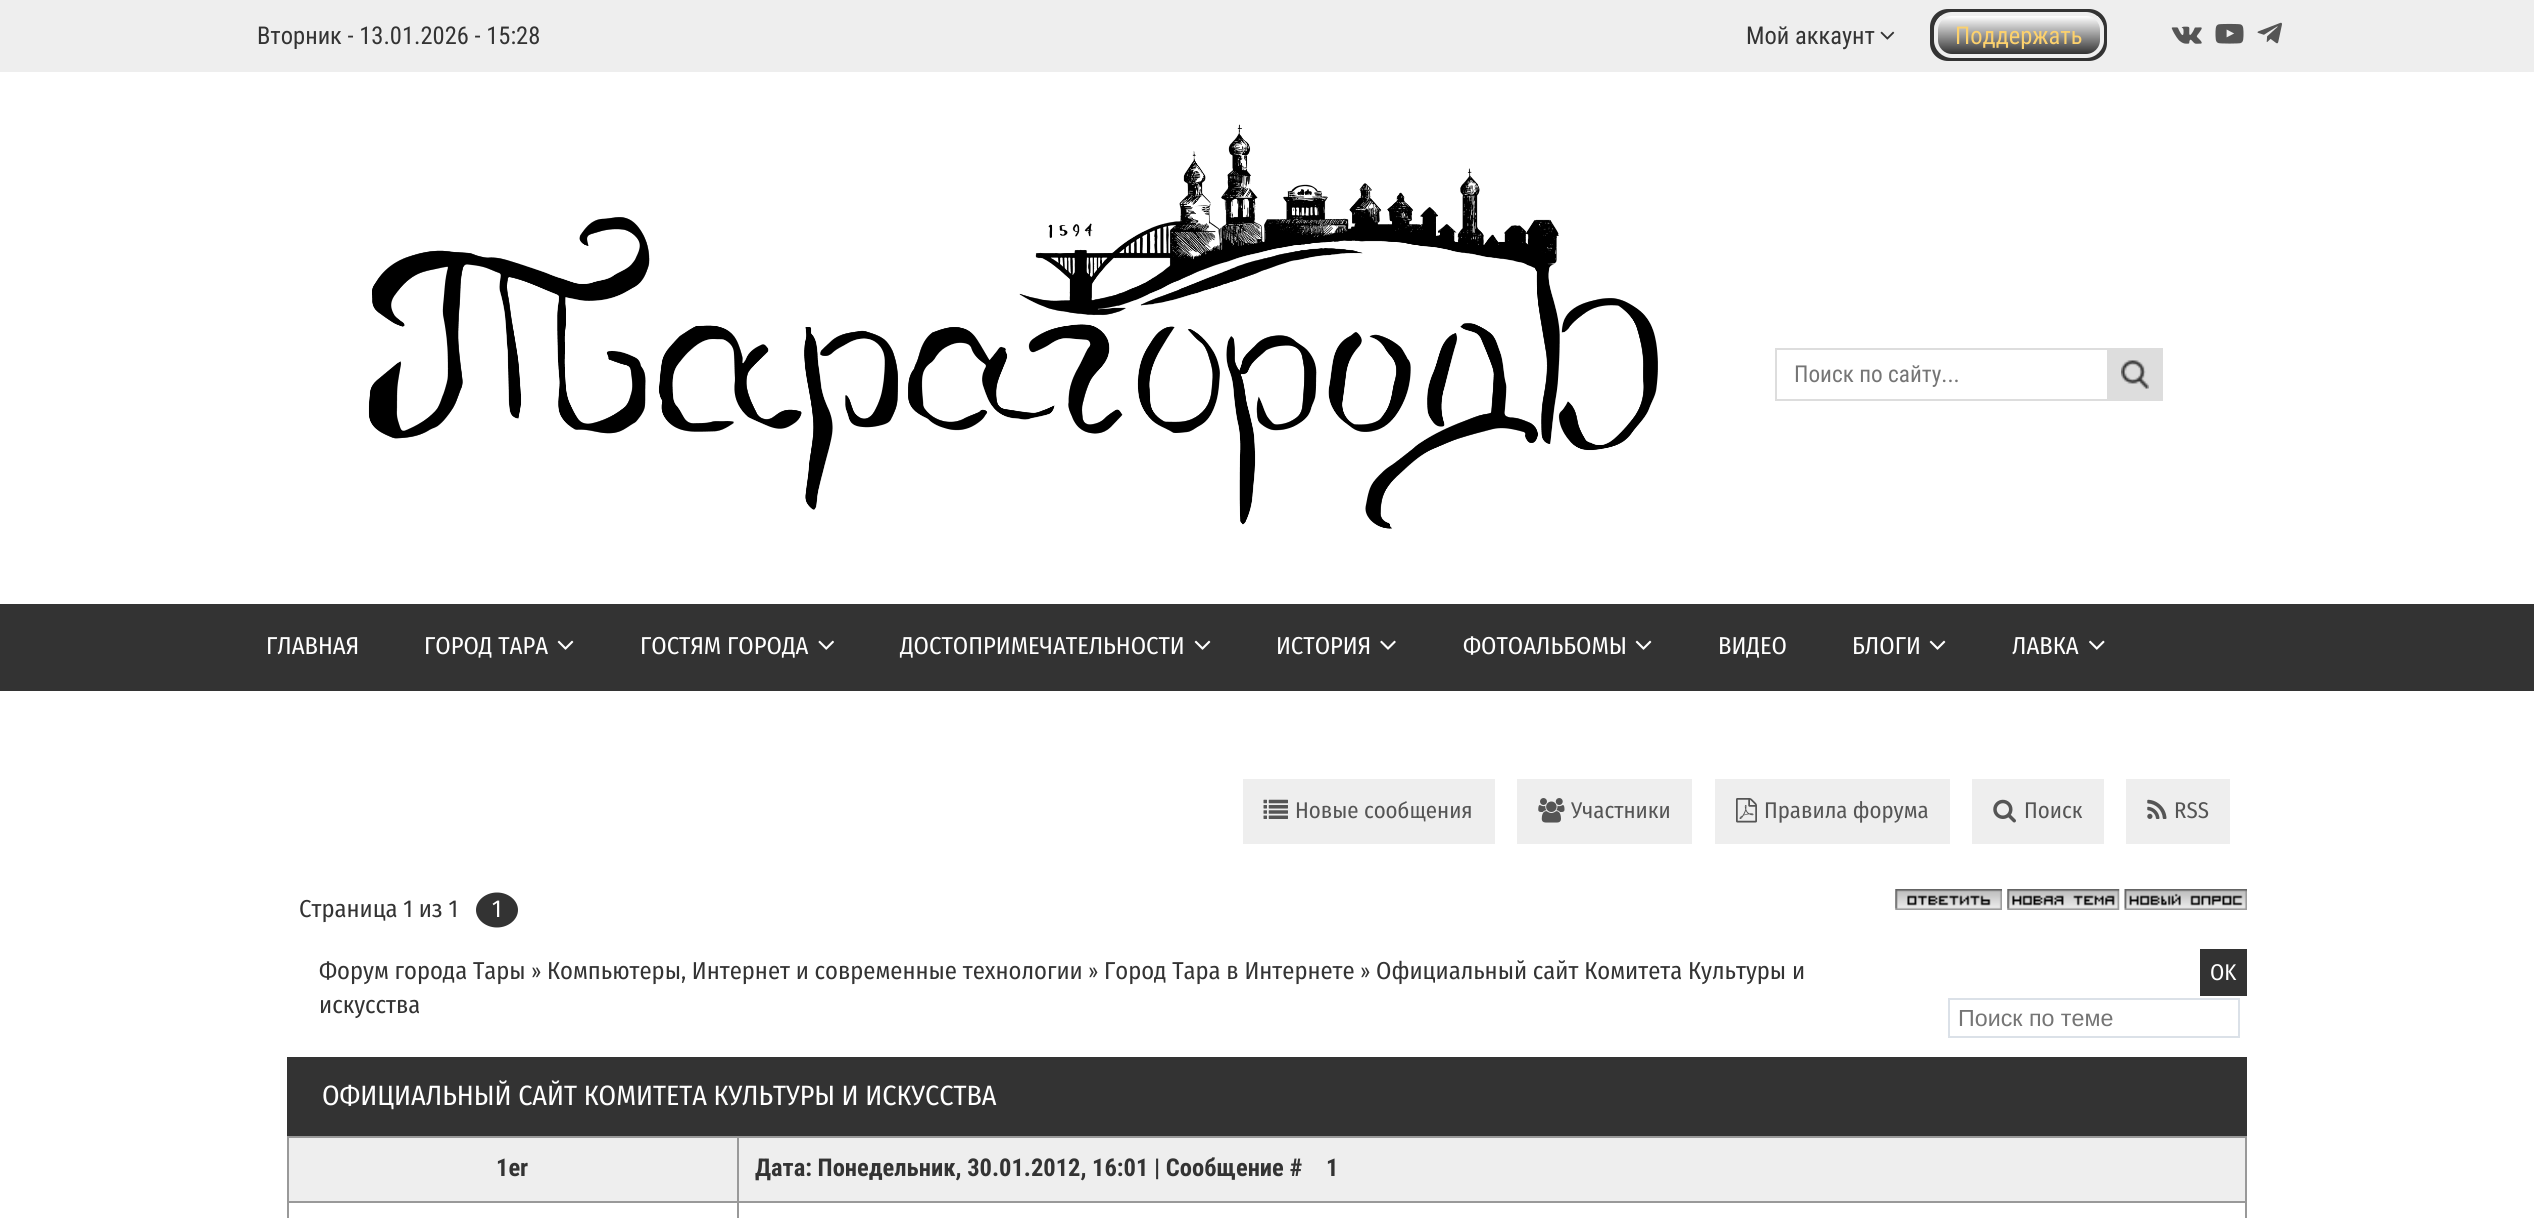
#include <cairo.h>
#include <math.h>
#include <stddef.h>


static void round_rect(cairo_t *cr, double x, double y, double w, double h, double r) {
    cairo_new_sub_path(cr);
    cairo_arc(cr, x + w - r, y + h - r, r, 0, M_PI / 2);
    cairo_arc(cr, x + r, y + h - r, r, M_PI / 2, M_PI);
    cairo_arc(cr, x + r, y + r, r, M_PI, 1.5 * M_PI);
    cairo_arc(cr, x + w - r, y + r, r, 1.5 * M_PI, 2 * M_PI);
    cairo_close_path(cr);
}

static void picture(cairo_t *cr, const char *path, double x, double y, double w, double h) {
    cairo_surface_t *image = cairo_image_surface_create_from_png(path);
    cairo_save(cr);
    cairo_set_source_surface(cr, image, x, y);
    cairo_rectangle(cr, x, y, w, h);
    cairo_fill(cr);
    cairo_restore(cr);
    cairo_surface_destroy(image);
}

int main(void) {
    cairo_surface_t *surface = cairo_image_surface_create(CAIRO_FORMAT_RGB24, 2534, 1218);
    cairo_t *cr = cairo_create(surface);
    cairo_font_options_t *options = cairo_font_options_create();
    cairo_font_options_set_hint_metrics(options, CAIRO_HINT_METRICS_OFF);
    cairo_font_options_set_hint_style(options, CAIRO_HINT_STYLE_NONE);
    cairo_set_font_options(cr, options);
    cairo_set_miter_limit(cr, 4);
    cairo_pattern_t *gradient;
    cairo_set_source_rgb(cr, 1, 1, 1);
    cairo_paint(cr);
    cairo_set_source_rgb(cr, 0.933, 0.933, 0.933);
    cairo_rectangle(cr, 0, 0, 2534, 72);
    cairo_fill(cr);
    cairo_select_font_face(cr, "Roboto Condensed", CAIRO_FONT_SLANT_NORMAL, CAIRO_FONT_WEIGHT_NORMAL);
    cairo_set_font_size(cr, 24.5);
    cairo_set_source_rgb(cr, 0.2, 0.2, 0.2);
    cairo_move_to(cr, 257, 44);
    cairo_show_text(cr, "Вторник - 13.01.2026 - 15:28");
    cairo_move_to(cr, 1746, 44);
    cairo_show_text(cr, "Мой аккаунт");
    picture(cr, "img1.png", 1880, 31, 15, 9);
    round_rect(cr, 1930, 9, 177, 52, 18);
    cairo_fill(cr);
    cairo_save(cr);
    round_rect(cr, 1934, 12, 170, 46, 18);
    cairo_clip(cr);
    gradient = cairo_pattern_create_linear(2019, 54, 2019, 16);
    cairo_pattern_add_color_stop_rgba(gradient, 0, 0.2, 0.2, 0.2, 1);
    cairo_pattern_add_color_stop_rgba(gradient, 1, 1, 1, 1, 1);
    cairo_set_source(cr, gradient);
    cairo_pattern_destroy(gradient);
    cairo_rectangle(cr, 1934, 16, 170, 38);
    cairo_fill(cr);
    cairo_restore(cr);
    round_rect(cr, 1936, 14, 166, 42, 16);
    cairo_set_source_rgb(cr, 0.933, 0.933, 0.933);
    cairo_set_line_width(cr, 4);
    cairo_stroke(cr);
    cairo_set_source_rgb(cr, 0.988, 0.82, 0.427);
    cairo_move_to(cr, 1955, 44);
    cairo_show_text(cr, "Поддержать");
    picture(cr, "img2.png", 2171, 26, 31, 18);
    picture(cr, "img3.png", 2215, 23, 29, 21);
    picture(cr, "img4.png", 2257, 22, 25, 22);
    picture(cr, "img5.png", 368, 124, 1290, 405);
    cairo_rectangle(cr, 1776, 349, 348, 51);
    cairo_set_source_rgb(cr, 0.867, 0.867, 0.867);
    cairo_set_line_width(cr, 2);
    cairo_stroke(cr);
    cairo_set_font_size(cr, 23.25);
    cairo_set_source_rgb(cr, 0.459, 0.459, 0.459);
    cairo_move_to(cr, 1794, 382);
    cairo_show_text(cr, "Поиск по сайту...");
    cairo_set_source_rgb(cr, 0.867, 0.867, 0.867);
    cairo_rectangle(cr, 2107, 348, 56, 53);
    cairo_fill(cr);
    picture(cr, "img6.png", 2121, 360, 28, 29);
    cairo_set_source_rgb(cr, 0.2, 0.2, 0.2);
    cairo_rectangle(cr, 0, 604, 2534, 87);
    cairo_fill(cr);
    cairo_select_font_face(cr, "Fira Sans Condensed", CAIRO_FONT_SLANT_NORMAL, CAIRO_FONT_WEIGHT_NORMAL);
    cairo_set_font_size(cr, 24.5);
    cairo_set_source_rgb(cr, 1, 1, 1);
    cairo_move_to(cr, 266, 654);
    cairo_show_text(cr, "ГЛАВНАЯ");
    cairo_move_to(cr, 424, 654);
    cairo_show_text(cr, "ГОРОД ТАРА");
    picture(cr, "img7.png", 557, 640, 17, 10);
    cairo_move_to(cr, 640, 654);
    cairo_show_text(cr, "ГОСТЯМ ГОРОДА");
    picture(cr, "img8.png", 818, 640, 16, 10);
    cairo_move_to(cr, 900, 654);
    cairo_show_text(cr, "ДОСТОПРИМЕЧАТЕЛЬНОСТИ");
    picture(cr, "img7.png", 1194, 640, 17, 10);
    cairo_move_to(cr, 1276, 654);
    cairo_show_text(cr, "ИСТОРИЯ");
    picture(cr, "img9.png", 1380, 640, 16, 10);
    cairo_move_to(cr, 1463, 654);
    cairo_show_text(cr, "ФОТОАЛЬБОМЫ");
    picture(cr, "img7.png", 1635, 640, 17, 10);
    cairo_move_to(cr, 1718, 654);
    cairo_show_text(cr, "ВИДЕО");
    cairo_move_to(cr, 1852, 654);
    cairo_show_text(cr, "БЛОГИ");
    picture(cr, "img7.png", 1929, 640, 17, 10);
    cairo_move_to(cr, 2012, 654);
    cairo_show_text(cr, "ЛАВКА");
    picture(cr, "img10.png", 2089, 640, 16, 10);
    cairo_set_source_rgb(cr, 0.933, 0.933, 0.933);
    cairo_rectangle(cr, 1243, 779, 252, 65);
    cairo_fill(cr);
    picture(cr, "img11.png", 1263, 799, 25, 20);
    cairo_set_font_size(cr, 22.75);
    cairo_set_source_rgb(cr, 0.333, 0.333, 0.333);
    cairo_move_to(cr, 1295, 818);
    cairo_show_text(cr, "Новые сообщения");
    cairo_set_source_rgb(cr, 0.933, 0.933, 0.933);
    cairo_rectangle(cr, 1517, 779, 175, 65);
    cairo_fill(cr);
    picture(cr, "img12.png", 1538, 798, 27, 25);
    cairo_set_source_rgb(cr, 0.333, 0.333, 0.333);
    cairo_move_to(cr, 1571, 818);
    cairo_show_text(cr, "Участники");
    cairo_set_source_rgb(cr, 0.933, 0.933, 0.933);
    cairo_rectangle(cr, 1715, 779, 235, 65);
    cairo_fill(cr);
    picture(cr, "img13.png", 1736, 798, 21, 25);
    cairo_set_source_rgb(cr, 0.333, 0.333, 0.333);
    cairo_move_to(cr, 1764, 818);
    cairo_show_text(cr, "Правила форума");
    cairo_set_source_rgb(cr, 0.933, 0.933, 0.933);
    cairo_rectangle(cr, 1972, 779, 132, 65);
    cairo_fill(cr);
    picture(cr, "img14.png", 1993, 799, 23, 24);
    cairo_set_source_rgb(cr, 0.333, 0.333, 0.333);
    cairo_move_to(cr, 2024, 818);
    cairo_show_text(cr, "Поиск");
    cairo_set_source_rgb(cr, 0.933, 0.933, 0.933);
    cairo_rectangle(cr, 2126, 779, 104, 65);
    cairo_fill(cr);
    picture(cr, "img15.png", 2147, 799, 20, 20);
    cairo_set_source_rgb(cr, 0.333, 0.333, 0.333);
    cairo_move_to(cr, 2174, 818);
    cairo_show_text(cr, "RSS");
    cairo_set_font_size(cr, 24.5);
    cairo_set_source_rgb(cr, 0.2, 0.2, 0.2);
    cairo_move_to(cr, 299, 917);
    cairo_show_text(cr, "Страница 1 из 1");
    cairo_new_path(cr);
    cairo_move_to(cr, 497, 892.5);
    cairo_curve_to(cr, 508.5, 892.5, 518, 900.5, 518, 910);
    cairo_curve_to(cr, 518, 919.5, 508.5, 927.5, 497, 927.5);
    cairo_curve_to(cr, 485.5, 927.5, 476, 919.5, 476, 910);
    cairo_curve_to(cr, 476, 900.5, 485.5, 892.5, 497, 892.5);
    cairo_close_path(cr);
    cairo_fill(cr);
    cairo_set_source_rgb(cr, 1, 1, 1);
    cairo_move_to(cr, 492, 917);
    cairo_show_text(cr, "1");
    picture(cr, "img16.png", 1895, 889, 107, 21);
    picture(cr, "img17.png", 2007, 889, 113, 21);
    picture(cr, "img18.png", 2124, 889, 123, 21);
    cairo_set_source_rgb(cr, 0.2, 0.2, 0.2);
    cairo_move_to(cr, 319, 979);
    cairo_show_text(cr, "Форум города Тары");
    cairo_select_font_face(cr, "Roboto Condensed", CAIRO_FONT_SLANT_NORMAL, CAIRO_FONT_WEIGHT_NORMAL);
    cairo_move_to(cr, 531, 979);
    cairo_show_text(cr, "»");
    cairo_select_font_face(cr, "Fira Sans Condensed", CAIRO_FONT_SLANT_NORMAL, CAIRO_FONT_WEIGHT_NORMAL);
    cairo_move_to(cr, 547, 979);
    cairo_show_text(cr, "Компьютеры, Интернет и современные технологии");
    cairo_select_font_face(cr, "Roboto Condensed", CAIRO_FONT_SLANT_NORMAL, CAIRO_FONT_WEIGHT_NORMAL);
    cairo_move_to(cr, 1088, 979);
    cairo_show_text(cr, "»");
    cairo_select_font_face(cr, "Fira Sans Condensed", CAIRO_FONT_SLANT_NORMAL, CAIRO_FONT_WEIGHT_NORMAL);
    cairo_move_to(cr, 1104, 979);
    cairo_show_text(cr, "Город Тара в Интернете");
    cairo_select_font_face(cr, "Roboto Condensed", CAIRO_FONT_SLANT_NORMAL, CAIRO_FONT_WEIGHT_NORMAL);
    cairo_move_to(cr, 1360, 979);
    cairo_show_text(cr, "»");
    cairo_select_font_face(cr, "Fira Sans Condensed", CAIRO_FONT_SLANT_NORMAL, CAIRO_FONT_WEIGHT_NORMAL);
    cairo_move_to(cr, 1376, 979);
    cairo_show_text(cr, "Официальный сайт Комитета Культуры и");
    cairo_move_to(cr, 319, 1013);
    cairo_show_text(cr, "искусства");
    cairo_rectangle(cr, 2200, 949, 47, 47);
    cairo_fill(cr);
    cairo_set_font_size(cr, 22.75);
    cairo_set_source_rgb(cr, 1, 1, 1);
    cairo_move_to(cr, 2210, 980);
    cairo_show_text(cr, "OK");
    cairo_rectangle(cr, 1949, 999, 290, 38);
    cairo_set_source_rgb(cr, 0.859, 0.882, 0.91);
    cairo_stroke(cr);
    cairo_select_font_face(cr, "Liberation Sans", CAIRO_FONT_SLANT_NORMAL, CAIRO_FONT_WEIGHT_NORMAL);
    cairo_set_font_size(cr, 23.25);
    cairo_set_source_rgb(cr, 0.459, 0.459, 0.459);
    cairo_move_to(cr, 1958, 1026);
    cairo_show_text(cr, "Поиск по теме");
    cairo_set_source_rgb(cr, 0.2, 0.2, 0.2);
    cairo_rectangle(cr, 287, 1057, 1960, 79);
    cairo_fill(cr);
    cairo_select_font_face(cr, "Fira Sans Condensed", CAIRO_FONT_SLANT_NORMAL, CAIRO_FONT_WEIGHT_NORMAL);
    cairo_set_font_size(cr, 28);
    cairo_set_source_rgb(cr, 1, 1, 1);
    cairo_move_to(cr, 322, 1105);
    cairo_show_text(cr, "ОФИЦИАЛЬНЫЙ САЙТ КОМИТЕТА КУЛЬТУРЫ И ИСКУССТВА");
    cairo_set_source_rgb(cr, 0.6, 0.6, 0.6);
    cairo_rectangle(cr, 287, 1136, 1960, 2);
    cairo_fill(cr);
    cairo_rectangle(cr, 737, 1138, 2, 80);
    cairo_fill(cr);
    cairo_rectangle(cr, 287, 1202, 2, 16);
    cairo_fill(cr);
    cairo_rectangle(cr, 2245, 1138, 2, 80);
    cairo_fill(cr);
    cairo_set_source_rgb(cr, 0.933, 0.933, 0.933);
    cairo_rectangle(cr, 289, 1138, 448, 63);
    cairo_fill(cr);
    cairo_set_source_rgb(cr, 0.6, 0.6, 0.6);
    cairo_rectangle(cr, 287, 1201, 1960, 2);
    cairo_fill(cr);
    cairo_rectangle(cr, 287, 1138, 2, 64);
    cairo_fill(cr);
    cairo_select_font_face(cr, "Roboto Condensed", CAIRO_FONT_SLANT_NORMAL, CAIRO_FONT_WEIGHT_BOLD);
    cairo_set_font_size(cr, 24.5);
    cairo_set_source_rgb(cr, 0.2, 0.2, 0.2);
    cairo_move_to(cr, 496, 1176);
    cairo_show_text(cr, "1er");
    cairo_set_source_rgb(cr, 0.933, 0.933, 0.933);
    cairo_rectangle(cr, 739, 1138, 1506, 63);
    cairo_fill(cr);
    cairo_set_source_rgb(cr, 0.2, 0.2, 0.2);
    cairo_move_to(cr, 755, 1176);
    cairo_show_text(cr, "Дата: Понедельник, 30.01.2012, 16:01 | Сообщение #");
    cairo_move_to(cr, 1326, 1176);
    cairo_show_text(cr, "1");
    cairo_surface_write_to_png(surface, "page.png");
    cairo_font_options_destroy(options);
    cairo_destroy(cr);
    cairo_surface_destroy(surface);
    return 0;
}
